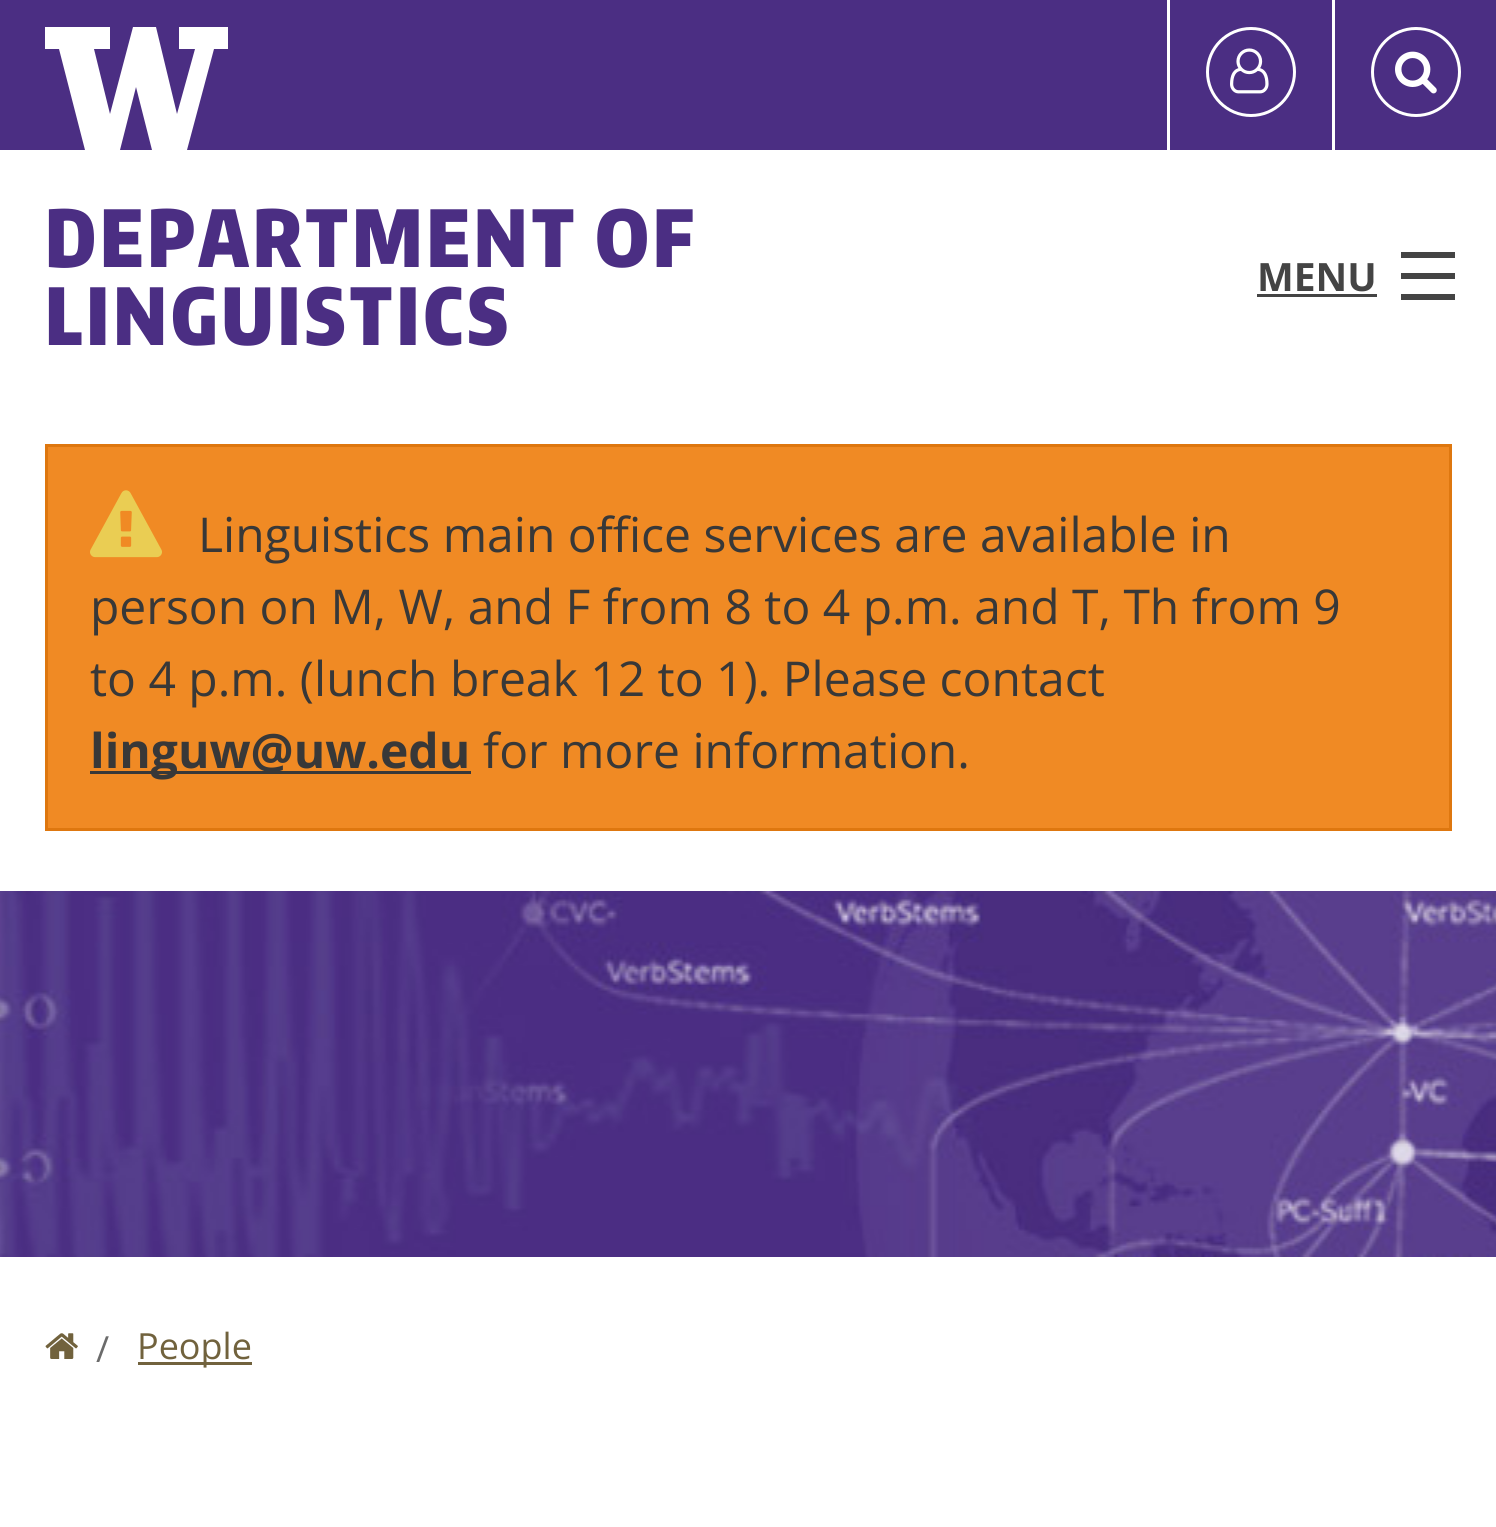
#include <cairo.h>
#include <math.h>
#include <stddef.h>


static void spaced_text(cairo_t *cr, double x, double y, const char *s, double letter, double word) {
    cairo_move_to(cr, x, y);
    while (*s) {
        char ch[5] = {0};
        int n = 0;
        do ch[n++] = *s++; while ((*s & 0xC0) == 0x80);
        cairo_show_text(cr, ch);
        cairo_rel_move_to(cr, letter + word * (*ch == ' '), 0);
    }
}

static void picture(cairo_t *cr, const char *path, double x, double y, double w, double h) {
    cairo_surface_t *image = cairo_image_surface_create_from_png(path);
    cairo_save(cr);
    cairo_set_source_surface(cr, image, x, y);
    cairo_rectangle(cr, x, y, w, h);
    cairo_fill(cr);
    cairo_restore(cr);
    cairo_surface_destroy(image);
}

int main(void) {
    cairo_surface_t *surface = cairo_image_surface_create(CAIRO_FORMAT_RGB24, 1496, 1527);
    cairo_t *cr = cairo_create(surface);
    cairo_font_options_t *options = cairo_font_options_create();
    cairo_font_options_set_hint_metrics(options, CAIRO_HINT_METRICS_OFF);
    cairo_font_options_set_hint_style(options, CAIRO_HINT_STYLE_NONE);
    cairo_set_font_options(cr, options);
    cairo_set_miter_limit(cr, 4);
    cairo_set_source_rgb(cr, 1, 1, 1);
    cairo_paint(cr);
    cairo_set_source_rgb(cr, 0.294, 0.18, 0.514);
    cairo_rectangle(cr, 0, 0, 1496, 150);
    cairo_fill(cr);
    cairo_set_source_rgb(cr, 1, 1, 1);
    cairo_new_path(cr);
    cairo_move_to(cr, 179, 27);
    cairo_line_to(cr, 179, 49);
    cairo_line_to(cr, 195, 49);
    cairo_line_to(cr, 177, 114);
    cairo_line_to(cr, 156, 27);
    cairo_line_to(cr, 133, 27);
    cairo_line_to(cr, 110, 114);
    cairo_line_to(cr, 94, 49);
    cairo_line_to(cr, 110, 49);
    cairo_line_to(cr, 110, 27);
    cairo_line_to(cr, 45, 27);
    cairo_line_to(cr, 45, 49);
    cairo_line_to(cr, 59, 49);
    cairo_line_to(cr, 85, 150);
    cairo_line_to(cr, 120, 150);
    cairo_line_to(cr, 136, 87);
    cairo_line_to(cr, 152, 150);
    cairo_line_to(cr, 187, 150);
    cairo_line_to(cr, 214, 49);
    cairo_line_to(cr, 228, 49);
    cairo_line_to(cr, 228, 27);
    cairo_close_path(cr);
    cairo_fill(cr);
    cairo_rectangle(cr, 1167, 0, 3, 150);
    cairo_fill(cr);
    cairo_arc(cr, 1251, 72, 43.5, 0, 2 * M_PI);
    cairo_set_line_width(cr, 3);
    cairo_stroke(cr);
    picture(cr, "img1.png", 1230, 48, 39, 46);
    cairo_rectangle(cr, 1332, 0, 3, 150);
    cairo_fill(cr);
    cairo_arc(cr, 1416, 72, 43.5, 0, 2 * M_PI);
    cairo_stroke(cr);
    picture(cr, "img2.png", 1395, 51, 42, 43);
    cairo_select_font_face(cr, "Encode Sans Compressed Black", CAIRO_FONT_SLANT_NORMAL, CAIRO_FONT_WEIGHT_NORMAL);
    cairo_set_font_size(cr, 78);
    cairo_set_source_rgb(cr, 0.294, 0.18, 0.514);
    spaced_text(cr, 45, 267, "DEPARTMENT OF", 3.9, 0);
    spaced_text(cr, 45, 345, "LINGUISTICS", 3.9, 0);
    cairo_select_font_face(cr, "Open Sans", CAIRO_FONT_SLANT_NORMAL, CAIRO_FONT_WEIGHT_BOLD);
    cairo_set_font_size(cr, 39);
    cairo_set_source_rgb(cr, 0.267, 0.267, 0.267);
    cairo_move_to(cr, 1257, 291);
    cairo_show_text(cr, "MENU");
    cairo_rectangle(cr, 1257, 294, 120, 3);
    cairo_fill(cr);
    cairo_rectangle(cr, 1401, 294, 54, 6);
    cairo_fill(cr);
    cairo_rectangle(cr, 1401, 273, 54, 6);
    cairo_fill(cr);
    cairo_rectangle(cr, 1401, 252, 54, 6);
    cairo_fill(cr);
    cairo_set_source_rgb(cr, 0.941, 0.541, 0.141);
    cairo_rectangle(cr, 46.5, 445.5, 1404, 384);
    cairo_fill_preserve(cr);
    cairo_set_source_rgb(cr, 0.871, 0.467, 0.059);
    cairo_stroke(cr);
    picture(cr, "img3.png", 90, 490, 72, 68);
    cairo_select_font_face(cr, "Open Sans", CAIRO_FONT_SLANT_NORMAL, CAIRO_FONT_WEIGHT_NORMAL);
    cairo_set_font_size(cr, 48);
    cairo_set_source_rgb(cr, 0.22, 0.22, 0.22);
    cairo_move_to(cr, 198, 552);
    cairo_show_text(cr, "Linguistics main office services are available in");
    cairo_move_to(cr, 90, 624);
    cairo_show_text(cr, "person on M, W, and F from 8 to 4 p.m. and T, Th from 9");
    cairo_move_to(cr, 90, 696);
    cairo_show_text(cr, "to 4 p.m. (lunch break 12 to 1). Please contact");
    cairo_rectangle(cr, 90, 771, 381, 3);
    cairo_fill(cr);
    cairo_select_font_face(cr, "Open Sans", CAIRO_FONT_SLANT_NORMAL, CAIRO_FONT_WEIGHT_BOLD);
    cairo_move_to(cr, 90, 768);
    cairo_show_text(cr, "linguw@uw.edu");
    cairo_select_font_face(cr, "Open Sans", CAIRO_FONT_SLANT_NORMAL, CAIRO_FONT_WEIGHT_NORMAL);
    cairo_move_to(cr, 483, 768);
    cairo_show_text(cr, "for more information.");
    picture(cr, "img4.png", 0, 891, 1496, 366);
    picture(cr, "img5.png", 45, 1333, 33, 26);
    cairo_set_font_size(cr, 36);
    cairo_set_source_rgb(cr, 0.42, 0.42, 0.42);
    cairo_move_to(cr, 96, 1362);
    cairo_show_text(cr, "/");
    cairo_set_source_rgb(cr, 0.443, 0.384, 0.239);
    cairo_rectangle(cr, 138, 1362, 114, 3);
    cairo_fill(cr);
    cairo_move_to(cr, 137, 1359);
    cairo_show_text(cr, "People");
    cairo_surface_write_to_png(surface, "page.png");
    cairo_font_options_destroy(options);
    cairo_destroy(cr);
    cairo_surface_destroy(surface);
    return 0;
}
